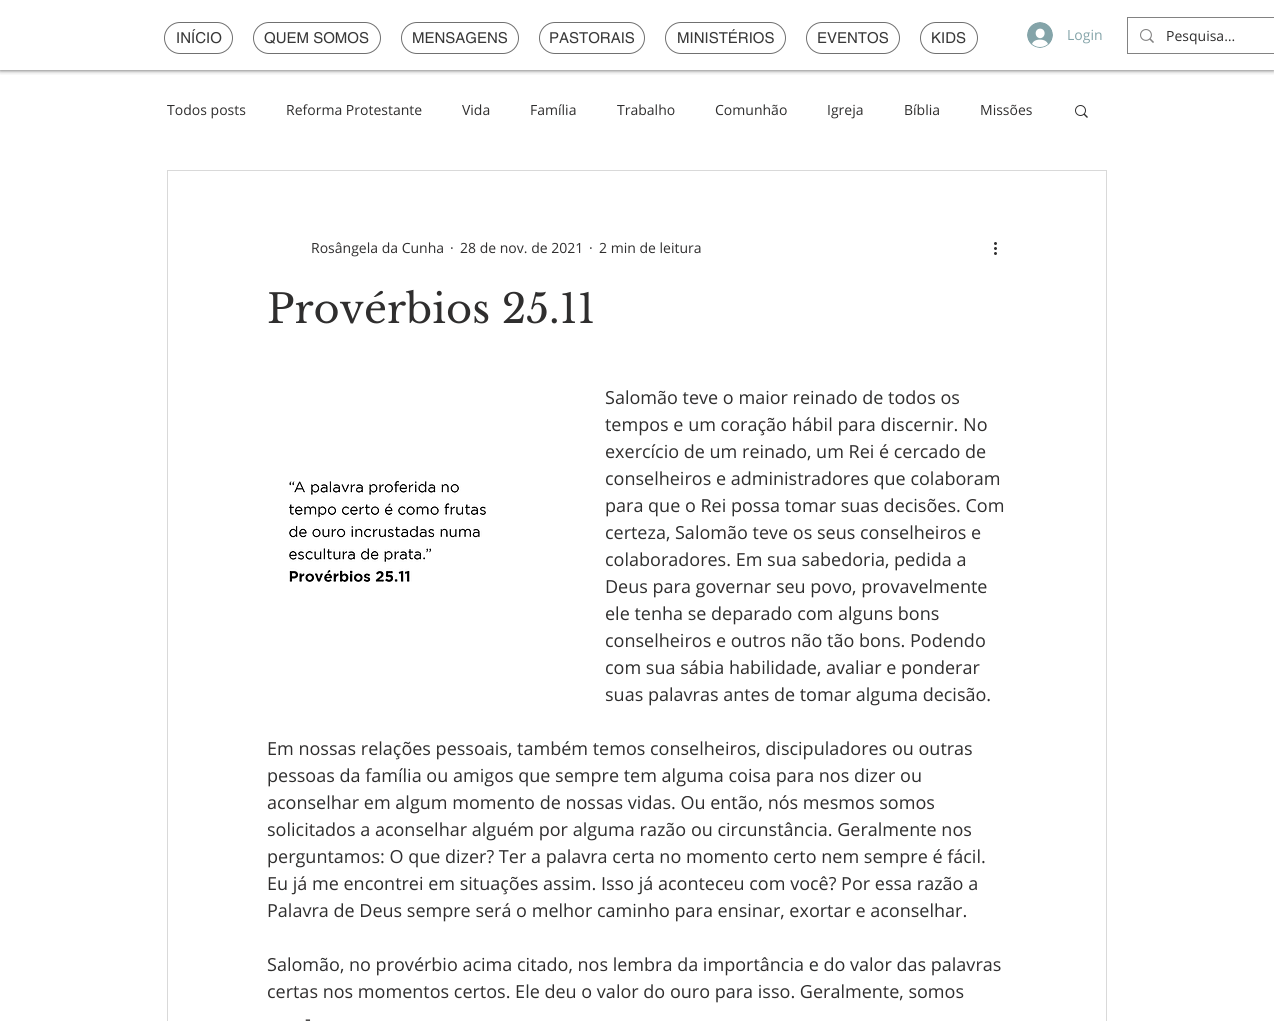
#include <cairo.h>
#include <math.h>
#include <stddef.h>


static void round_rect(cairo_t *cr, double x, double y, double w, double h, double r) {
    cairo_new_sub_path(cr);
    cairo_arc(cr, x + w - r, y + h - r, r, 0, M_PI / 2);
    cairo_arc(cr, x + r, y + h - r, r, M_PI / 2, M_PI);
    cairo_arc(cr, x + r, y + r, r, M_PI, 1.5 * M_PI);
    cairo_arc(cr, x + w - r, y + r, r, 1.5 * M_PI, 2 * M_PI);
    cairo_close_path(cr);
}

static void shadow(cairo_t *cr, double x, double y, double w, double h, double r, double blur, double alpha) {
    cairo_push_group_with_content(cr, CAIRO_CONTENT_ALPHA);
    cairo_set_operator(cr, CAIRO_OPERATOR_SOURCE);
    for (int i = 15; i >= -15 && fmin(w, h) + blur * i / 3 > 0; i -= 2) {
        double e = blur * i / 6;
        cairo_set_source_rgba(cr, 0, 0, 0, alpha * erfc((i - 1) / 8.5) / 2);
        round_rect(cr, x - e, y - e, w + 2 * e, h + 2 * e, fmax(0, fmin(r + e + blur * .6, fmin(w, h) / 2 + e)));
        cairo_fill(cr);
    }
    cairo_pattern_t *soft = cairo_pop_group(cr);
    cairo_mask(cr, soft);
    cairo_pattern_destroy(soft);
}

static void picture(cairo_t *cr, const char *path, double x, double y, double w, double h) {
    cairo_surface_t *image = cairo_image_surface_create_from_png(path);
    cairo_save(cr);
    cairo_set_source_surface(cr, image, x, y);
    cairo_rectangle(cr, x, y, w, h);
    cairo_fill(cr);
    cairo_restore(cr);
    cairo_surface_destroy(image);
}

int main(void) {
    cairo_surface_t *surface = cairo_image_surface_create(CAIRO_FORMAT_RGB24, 1274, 1021);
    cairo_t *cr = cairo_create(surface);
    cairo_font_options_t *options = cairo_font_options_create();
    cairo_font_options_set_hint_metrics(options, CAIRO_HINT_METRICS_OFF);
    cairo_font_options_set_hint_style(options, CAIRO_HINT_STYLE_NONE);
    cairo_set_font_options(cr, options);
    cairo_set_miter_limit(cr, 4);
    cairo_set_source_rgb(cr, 1, 1, 1);
    cairo_paint(cr);
    cairo_save(cr);
    cairo_rectangle(cr, 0, 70, 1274, 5);
    cairo_clip(cr);
    cairo_set_source_rgb(cr, 0, 0, 0);
    shadow(cr, 0, 0, 1274, 70, 0, 2.5, 0.7);
    cairo_restore(cr);
    round_rect(cr, 164.5, 22.5, 68, 31, 15.5);
    cairo_set_source_rgb(cr, 0.439, 0.439, 0.439);
    cairo_set_line_width(cr, 1);
    cairo_stroke(cr);
    cairo_select_font_face(cr, "helvetica", CAIRO_FONT_SLANT_NORMAL, CAIRO_FONT_WEIGHT_NORMAL);
    cairo_set_font_size(cr, 15);
    cairo_set_source_rgb(cr, 0.22, 0.22, 0.22);
    cairo_move_to(cr, 176, 43);
    cairo_show_text(cr, "INÍCIO");
    round_rect(cr, 253.5, 22.5, 127, 31, 15.5);
    cairo_set_source_rgb(cr, 0.439, 0.439, 0.439);
    cairo_stroke(cr);
    cairo_set_source_rgb(cr, 0.22, 0.22, 0.22);
    cairo_move_to(cr, 264, 43);
    cairo_show_text(cr, "QUEM SOMOS");
    round_rect(cr, 401.5, 22.5, 117, 31, 15.5);
    cairo_set_source_rgb(cr, 0.439, 0.439, 0.439);
    cairo_stroke(cr);
    cairo_set_source_rgb(cr, 0.22, 0.22, 0.22);
    cairo_move_to(cr, 412, 43);
    cairo_show_text(cr, "MENSAGENS");
    round_rect(cr, 539.5, 22.5, 105, 31, 15.5);
    cairo_set_source_rgb(cr, 0.439, 0.439, 0.439);
    cairo_stroke(cr);
    cairo_set_source_rgb(cr, 0.22, 0.22, 0.22);
    cairo_move_to(cr, 549, 43);
    cairo_show_text(cr, "PASTORAIS");
    round_rect(cr, 665.5, 22.5, 120, 31, 15.5);
    cairo_set_source_rgb(cr, 0.439, 0.439, 0.439);
    cairo_stroke(cr);
    cairo_set_source_rgb(cr, 0.22, 0.22, 0.22);
    cairo_move_to(cr, 677, 43);
    cairo_show_text(cr, "MINISTÉRIOS");
    round_rect(cr, 806.5, 22.5, 93, 31, 15.5);
    cairo_set_source_rgb(cr, 0.439, 0.439, 0.439);
    cairo_stroke(cr);
    cairo_set_source_rgb(cr, 0.22, 0.22, 0.22);
    cairo_move_to(cr, 817, 43);
    cairo_show_text(cr, "EVENTOS");
    round_rect(cr, 920.5, 22.5, 57, 31, 15.5);
    cairo_set_source_rgb(cr, 0.439, 0.439, 0.439);
    cairo_stroke(cr);
    cairo_set_source_rgb(cr, 0.22, 0.22, 0.22);
    cairo_move_to(cr, 931, 43);
    cairo_show_text(cr, "KIDS");
    picture(cr, "img1.png", 1027, 22, 26, 26);
    cairo_select_font_face(cr, "Open Sans", CAIRO_FONT_SLANT_NORMAL, CAIRO_FONT_WEIGHT_NORMAL);
    cairo_set_font_size(cr, 14);
    cairo_set_source_rgb(cr, 0.518, 0.643, 0.663);
    cairo_move_to(cr, 1067, 40);
    cairo_show_text(cr, "Login");
    cairo_rectangle(cr, 1127.5, 17.5, 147, 36);
    cairo_set_source_rgb(cr, 0.51, 0.51, 0.51);
    cairo_stroke(cr);
    picture(cr, "img2.png", 1140, 29, 14, 14);
    cairo_set_source_rgb(cr, 0.184, 0.18, 0.18);
    cairo_move_to(cr, 1166, 41);
    cairo_show_text(cr, "Pesquisa…");
    cairo_move_to(cr, 167, 115);
    cairo_show_text(cr, "Todos posts");
    cairo_move_to(cr, 286, 115);
    cairo_show_text(cr, "Reforma Protestante");
    cairo_move_to(cr, 462, 115);
    cairo_show_text(cr, "Vida");
    cairo_move_to(cr, 530, 115);
    cairo_show_text(cr, "Família");
    cairo_move_to(cr, 617, 115);
    cairo_show_text(cr, "Trabalho");
    cairo_move_to(cr, 715, 115);
    cairo_show_text(cr, "Comunhão");
    cairo_move_to(cr, 827, 115);
    cairo_show_text(cr, "Igreja");
    cairo_move_to(cr, 904, 115);
    cairo_show_text(cr, "Bíblia");
    cairo_move_to(cr, 980, 115);
    cairo_show_text(cr, "Missões");
    picture(cr, "img3.png", 1075, 105, 13, 13);
    cairo_rectangle(cr, 167.5, 170.5, 939, 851);
    cairo_set_source_rgb(cr, 0.851, 0.851, 0.851);
    cairo_stroke(cr);
    cairo_set_source_rgb(cr, 0.184, 0.18, 0.18);
    cairo_move_to(cr, 311, 253);
    cairo_show_text(cr, "Rosângela da Cunha");
    cairo_move_to(cr, 450, 253);
    cairo_show_text(cr, "·");
    cairo_move_to(cr, 460, 253);
    cairo_show_text(cr, "28 de nov. de 2021");
    cairo_move_to(cr, 589, 253);
    cairo_show_text(cr, "·");
    cairo_move_to(cr, 599, 253);
    cairo_show_text(cr, "2 min de leitura");
    picture(cr, "img4.png", 994, 242, 3, 13);
    cairo_select_font_face(cr, "Libre Baskerville", CAIRO_FONT_SLANT_NORMAL, CAIRO_FONT_WEIGHT_NORMAL);
    cairo_set_font_size(cr, 40);
    cairo_move_to(cr, 267, 323);
    cairo_show_text(cr, "Provérbios 25.11");
    picture(cr, "img5.png", 289, 481, 197, 101);
    cairo_select_font_face(cr, "Open Sans", CAIRO_FONT_SLANT_NORMAL, CAIRO_FONT_WEIGHT_NORMAL);
    cairo_set_font_size(cr, 18);
    cairo_move_to(cr, 605, 404);
    cairo_show_text(cr, "Salomão teve o maior reinado de todos os");
    cairo_move_to(cr, 605, 431);
    cairo_show_text(cr, "tempos e um coração hábil para discernir. No");
    cairo_move_to(cr, 605, 458);
    cairo_show_text(cr, "exercício de um reinado, um Rei é cercado de");
    cairo_move_to(cr, 605, 485);
    cairo_show_text(cr, "conselheiros e administradores que colaboram");
    cairo_move_to(cr, 605, 512);
    cairo_show_text(cr, "para que o Rei possa tomar suas decisões. Com");
    cairo_move_to(cr, 605, 539);
    cairo_show_text(cr, "certeza, Salomão teve os seus conselheiros e");
    cairo_move_to(cr, 605, 566);
    cairo_show_text(cr, "colaboradores. Em sua sabedoria, pedida a");
    cairo_move_to(cr, 605, 593);
    cairo_show_text(cr, "Deus para governar seu povo, provavelmente");
    cairo_move_to(cr, 605, 620);
    cairo_show_text(cr, "ele tenha se deparado com alguns bons");
    cairo_move_to(cr, 605, 647);
    cairo_show_text(cr, "conselheiros e outros não tão bons. Podendo");
    cairo_move_to(cr, 605, 674);
    cairo_show_text(cr, "com sua sábia habilidade, avaliar e ponderar");
    cairo_move_to(cr, 605, 701);
    cairo_show_text(cr, "suas palavras antes de tomar alguma decisão.");
    cairo_move_to(cr, 267, 755);
    cairo_show_text(cr, "Em nossas relações pessoais, também temos conselheiros, discipuladores ou outras");
    cairo_move_to(cr, 267, 782);
    cairo_show_text(cr, "pessoas da família ou amigos que sempre tem alguma coisa para nos dizer ou");
    cairo_move_to(cr, 267, 809);
    cairo_show_text(cr, "aconselhar em algum momento de nossas vidas. Ou então, nós mesmos somos");
    cairo_move_to(cr, 267, 836);
    cairo_show_text(cr, "solicitados a aconselhar alguém por alguma razão ou circunstância. Geralmente nos");
    cairo_move_to(cr, 267, 863);
    cairo_show_text(cr, "perguntamos: O que dizer? Ter a palavra certa no momento certo nem sempre é fácil.");
    cairo_move_to(cr, 267, 890);
    cairo_show_text(cr, "Eu já me encontrei em situações assim. Isso já aconteceu com você? Por essa razão a");
    cairo_move_to(cr, 267, 917);
    cairo_show_text(cr, "Palavra de Deus sempre será o melhor caminho para ensinar, exortar e aconselhar.");
    cairo_move_to(cr, 267, 971);
    cairo_show_text(cr, "Salomão, no provérbio acima citado, nos lembra da importância e do valor das palavras");
    cairo_move_to(cr, 267, 998);
    cairo_show_text(cr, "certas nos momentos certos. Ele deu o valor do ouro para isso. Geralmente, somos");
    cairo_move_to(cr, 305, 1025);
    cairo_show_text(cr, "-");
    cairo_surface_write_to_png(surface, "page.png");
    cairo_font_options_destroy(options);
    cairo_destroy(cr);
    cairo_surface_destroy(surface);
    return 0;
}
